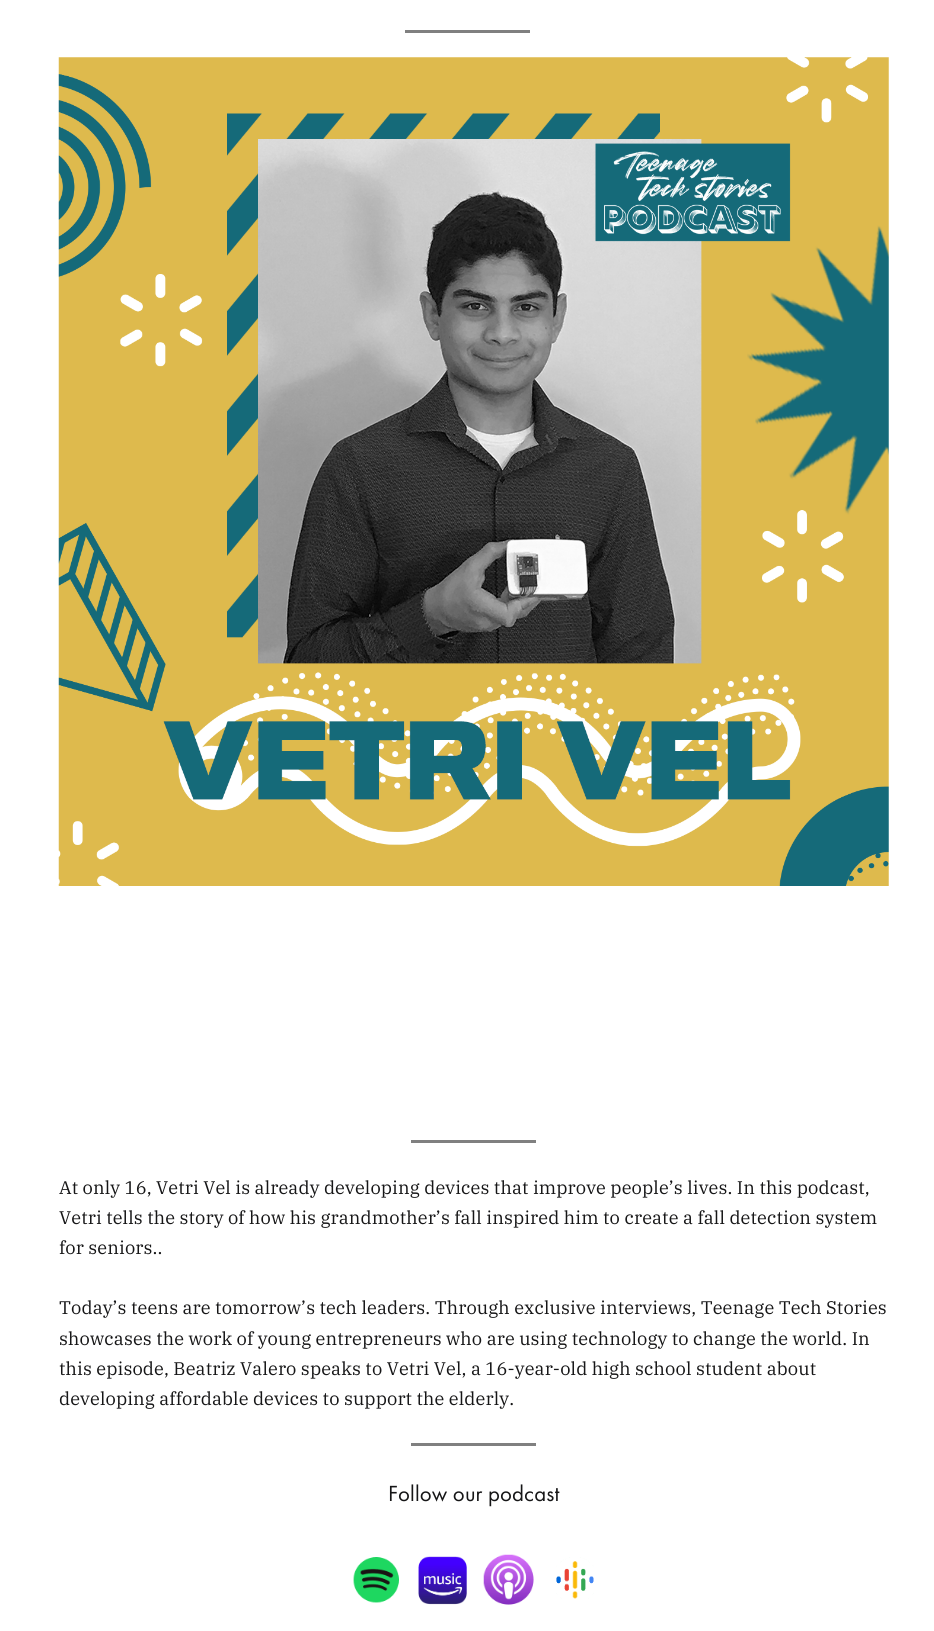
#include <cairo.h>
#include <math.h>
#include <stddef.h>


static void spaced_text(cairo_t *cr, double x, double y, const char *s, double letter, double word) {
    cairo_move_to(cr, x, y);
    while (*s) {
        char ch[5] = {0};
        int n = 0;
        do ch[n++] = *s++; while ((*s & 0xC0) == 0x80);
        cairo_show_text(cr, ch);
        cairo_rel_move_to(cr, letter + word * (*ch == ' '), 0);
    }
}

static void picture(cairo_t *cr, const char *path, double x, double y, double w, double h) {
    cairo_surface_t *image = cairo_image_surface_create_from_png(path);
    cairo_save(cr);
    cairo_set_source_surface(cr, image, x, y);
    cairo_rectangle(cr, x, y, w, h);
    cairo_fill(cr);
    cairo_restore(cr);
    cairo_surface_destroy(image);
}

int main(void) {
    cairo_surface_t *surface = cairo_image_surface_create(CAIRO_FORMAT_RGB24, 934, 1631);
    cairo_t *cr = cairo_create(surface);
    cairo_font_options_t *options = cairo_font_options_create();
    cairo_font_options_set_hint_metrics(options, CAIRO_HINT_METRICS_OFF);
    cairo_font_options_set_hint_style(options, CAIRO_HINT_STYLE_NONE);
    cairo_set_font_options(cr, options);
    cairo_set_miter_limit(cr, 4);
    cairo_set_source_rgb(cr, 1, 1, 1);
    cairo_paint(cr);
    cairo_set_source_rgb(cr, 0.502, 0.502, 0.502);
    cairo_rectangle(cr, 405, 30, 125, 3);
    cairo_fill(cr);
    picture(cr, "img1.png", 58, 57, 831, 829);
    cairo_rectangle(cr, 411, 1140, 125, 3);
    cairo_fill(cr);
    cairo_select_font_face(cr, "IBM Plex Serif", CAIRO_FONT_SLANT_NORMAL, CAIRO_FONT_WEIGHT_NORMAL);
    cairo_set_font_size(cr, 18.25);
    cairo_set_source_rgb(cr, 0.086, 0.086, 0.09);
    spaced_text(cr, 59, 1194, "At only 16, Vetri Vel is already developing devices that improve people’s lives. In this podcast,", 0.12, 0);
    spaced_text(cr, 59, 1224, "Vetri tells the story of how his grandmother’s fall inspired him to create a fall detection system", 0.12, 0);
    spaced_text(cr, 59, 1254, "for seniors..", 0.12, 0);
    spaced_text(cr, 59, 1314, "Today’s teens are tomorrow’s tech leaders. Through exclusive interviews, Teenage Tech Stories", 0.12, 0);
    spaced_text(cr, 59, 1345, "showcases the work of young entrepreneurs who are using technology to change the world. In", 0.12, 0);
    spaced_text(cr, 59, 1375, "this episode, Beatriz Valero speaks to Vetri Vel, a 16-year-old high school student about", 0.12, 0);
    spaced_text(cr, 59, 1405, "developing affordable devices to support the elderly.", 0.12, 0);
    cairo_set_source_rgb(cr, 0.502, 0.502, 0.502);
    cairo_rectangle(cr, 411, 1443, 125, 3);
    cairo_fill(cr);
    cairo_select_font_face(cr, "Futura PT", CAIRO_FONT_SLANT_NORMAL, CAIRO_FONT_WEIGHT_NORMAL);
    cairo_set_font_size(cr, 22.75);
    cairo_set_source_rgb(cr, 0.086, 0.086, 0.09);
    spaced_text(cr, 388, 1501, "Follow our podcast", 0.12, 0);
    picture(cr, "img2.png", 353, 1557, 46, 46);
    picture(cr, "img3.png", 418, 1556, 49, 49);
    picture(cr, "img4.png", 483, 1554, 51, 51);
    picture(cr, "img5.png", 556, 1557, 38, 42);
    cairo_surface_write_to_png(surface, "page.png");
    cairo_font_options_destroy(options);
    cairo_destroy(cr);
    cairo_surface_destroy(surface);
    return 0;
}
